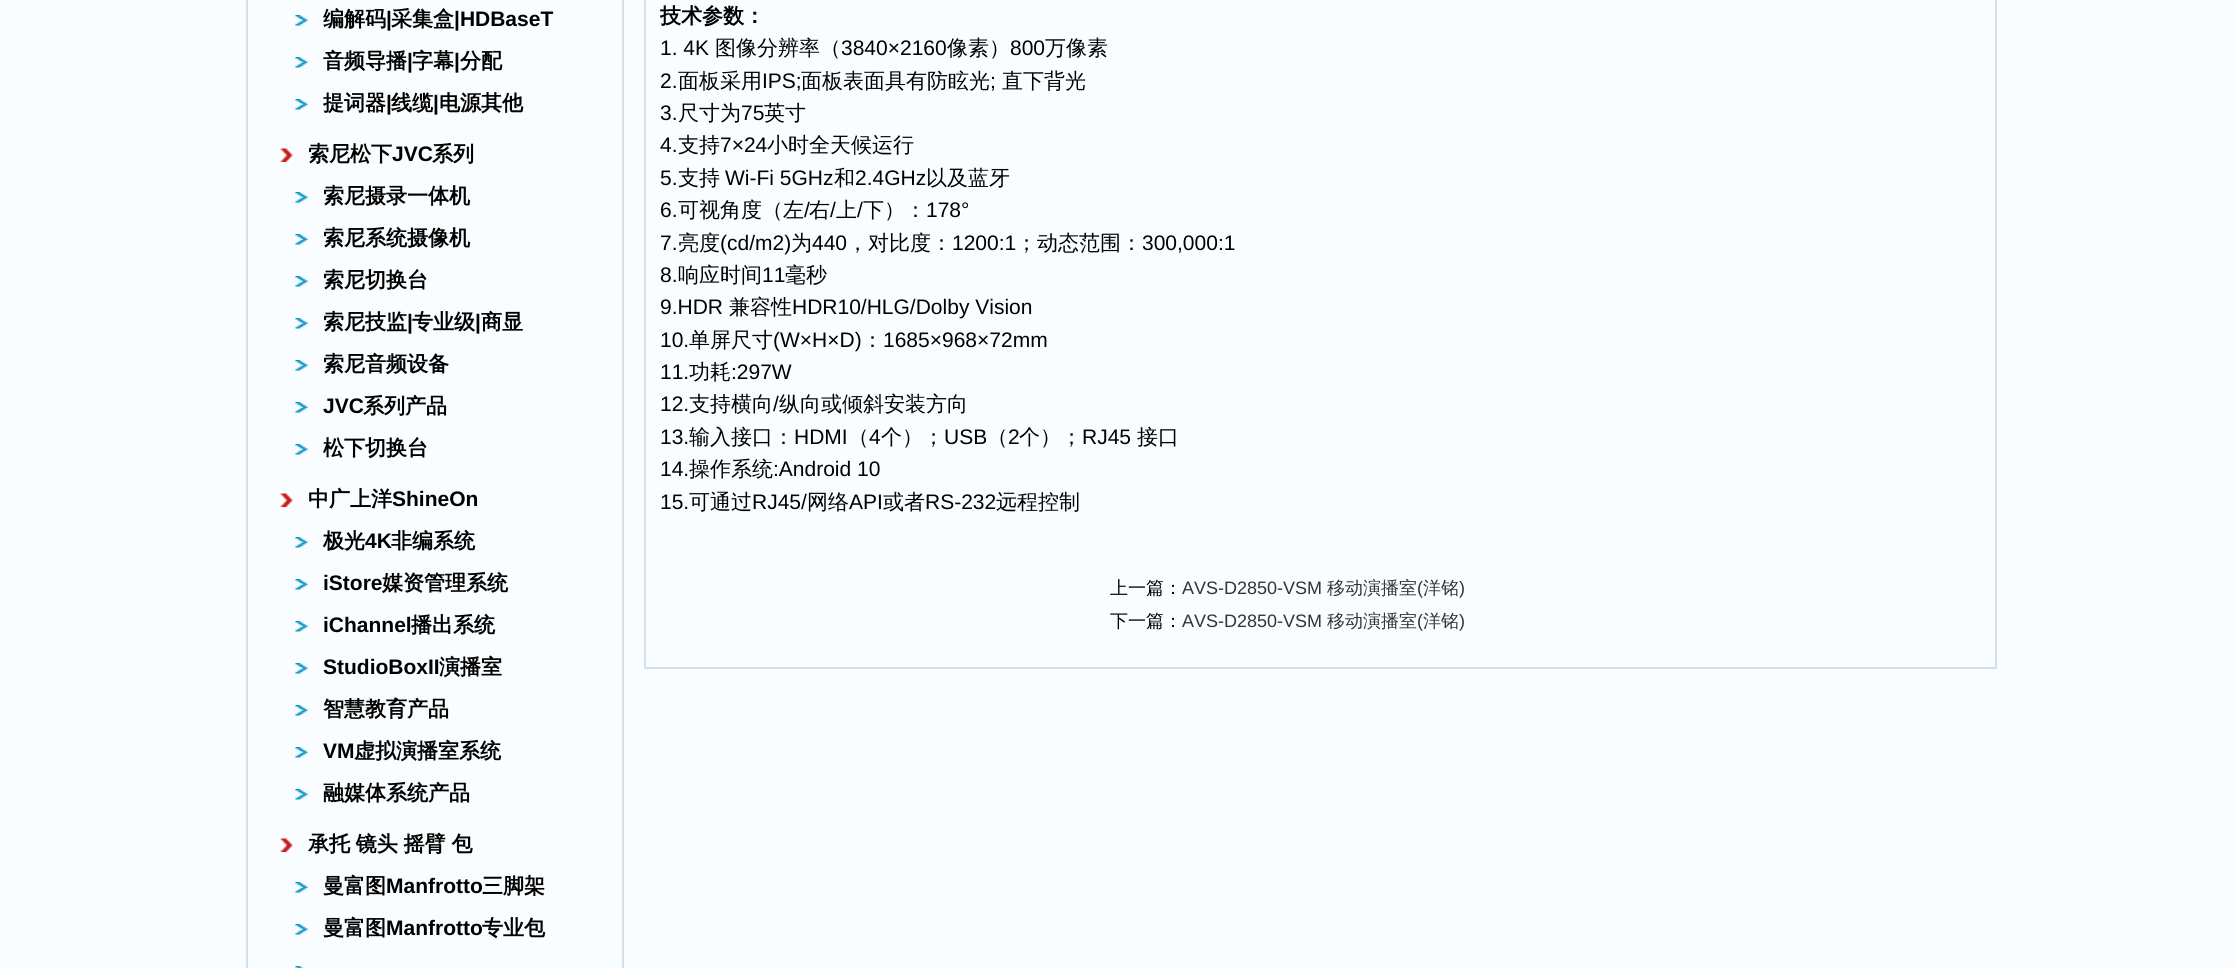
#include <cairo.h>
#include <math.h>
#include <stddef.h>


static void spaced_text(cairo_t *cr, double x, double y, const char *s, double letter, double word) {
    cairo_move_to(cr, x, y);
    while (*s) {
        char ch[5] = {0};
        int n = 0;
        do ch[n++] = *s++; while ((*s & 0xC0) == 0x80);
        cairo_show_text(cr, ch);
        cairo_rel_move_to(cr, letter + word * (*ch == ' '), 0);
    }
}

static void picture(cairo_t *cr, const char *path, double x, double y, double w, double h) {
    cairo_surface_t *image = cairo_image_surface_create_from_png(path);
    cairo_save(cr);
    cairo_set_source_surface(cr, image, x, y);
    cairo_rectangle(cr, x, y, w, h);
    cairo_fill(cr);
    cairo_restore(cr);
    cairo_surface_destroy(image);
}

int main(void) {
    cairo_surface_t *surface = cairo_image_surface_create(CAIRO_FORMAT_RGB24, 2237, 968);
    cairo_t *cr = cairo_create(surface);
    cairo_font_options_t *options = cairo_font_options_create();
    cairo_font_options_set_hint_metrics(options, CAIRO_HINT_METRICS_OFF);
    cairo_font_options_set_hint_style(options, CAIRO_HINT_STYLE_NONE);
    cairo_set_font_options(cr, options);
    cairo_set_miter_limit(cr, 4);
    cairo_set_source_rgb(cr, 0.98, 0.992, 1);
    cairo_paint(cr);
    cairo_rectangle(cr, 247, -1, 376, 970);
    cairo_set_source_rgb(cr, 0.827, 0.882, 0.929);
    cairo_stroke(cr);
    picture(cr, "img1.png", 295, 15, 13, 11);
    cairo_select_font_face(cr, "WenQuanYi Zen Hei", CAIRO_FONT_SLANT_NORMAL, CAIRO_FONT_WEIGHT_BOLD);
    cairo_set_font_size(cr, 21);
    cairo_set_source_rgb(cr, 0, 0, 0);
    cairo_move_to(cr, 323, 26);
    cairo_show_text(cr, "编解码");
    cairo_select_font_face(cr, "Liberation Sans", CAIRO_FONT_SLANT_NORMAL, CAIRO_FONT_WEIGHT_BOLD);
    cairo_move_to(cr, 386, 26);
    cairo_show_text(cr, "|");
    cairo_select_font_face(cr, "WenQuanYi Zen Hei", CAIRO_FONT_SLANT_NORMAL, CAIRO_FONT_WEIGHT_BOLD);
    cairo_move_to(cr, 391, 26);
    cairo_show_text(cr, "采集盒");
    cairo_select_font_face(cr, "Liberation Sans", CAIRO_FONT_SLANT_NORMAL, CAIRO_FONT_WEIGHT_BOLD);
    cairo_move_to(cr, 454, 26);
    cairo_show_text(cr, "|HDBaseT");
    picture(cr, "img1.png", 295, 57, 13, 11);
    cairo_select_font_face(cr, "WenQuanYi Zen Hei", CAIRO_FONT_SLANT_NORMAL, CAIRO_FONT_WEIGHT_BOLD);
    cairo_move_to(cr, 323, 68);
    cairo_show_text(cr, "音频导播");
    cairo_select_font_face(cr, "Liberation Sans", CAIRO_FONT_SLANT_NORMAL, CAIRO_FONT_WEIGHT_BOLD);
    cairo_move_to(cr, 407, 68);
    cairo_show_text(cr, "|");
    cairo_select_font_face(cr, "WenQuanYi Zen Hei", CAIRO_FONT_SLANT_NORMAL, CAIRO_FONT_WEIGHT_BOLD);
    cairo_move_to(cr, 412, 68);
    cairo_show_text(cr, "字幕");
    cairo_select_font_face(cr, "Liberation Sans", CAIRO_FONT_SLANT_NORMAL, CAIRO_FONT_WEIGHT_BOLD);
    cairo_move_to(cr, 454, 68);
    cairo_show_text(cr, "|");
    cairo_select_font_face(cr, "WenQuanYi Zen Hei", CAIRO_FONT_SLANT_NORMAL, CAIRO_FONT_WEIGHT_BOLD);
    cairo_move_to(cr, 460, 68);
    cairo_show_text(cr, "分配");
    picture(cr, "img1.png", 295, 99, 13, 11);
    cairo_move_to(cr, 323, 110);
    cairo_show_text(cr, "提词器");
    cairo_select_font_face(cr, "Liberation Sans", CAIRO_FONT_SLANT_NORMAL, CAIRO_FONT_WEIGHT_BOLD);
    cairo_move_to(cr, 386, 110);
    cairo_show_text(cr, "|");
    cairo_select_font_face(cr, "WenQuanYi Zen Hei", CAIRO_FONT_SLANT_NORMAL, CAIRO_FONT_WEIGHT_BOLD);
    cairo_move_to(cr, 391, 110);
    cairo_show_text(cr, "线缆");
    cairo_select_font_face(cr, "Liberation Sans", CAIRO_FONT_SLANT_NORMAL, CAIRO_FONT_WEIGHT_BOLD);
    cairo_move_to(cr, 433, 110);
    cairo_show_text(cr, "|");
    cairo_select_font_face(cr, "WenQuanYi Zen Hei", CAIRO_FONT_SLANT_NORMAL, CAIRO_FONT_WEIGHT_BOLD);
    cairo_move_to(cr, 439, 110);
    cairo_show_text(cr, "电源其他");
    picture(cr, "img2.png", 280, 148, 13, 14);
    cairo_move_to(cr, 308, 161);
    cairo_show_text(cr, "索尼松下");
    cairo_select_font_face(cr, "Liberation Sans", CAIRO_FONT_SLANT_NORMAL, CAIRO_FONT_WEIGHT_BOLD);
    cairo_move_to(cr, 392, 161);
    cairo_show_text(cr, "JVC");
    cairo_select_font_face(cr, "WenQuanYi Zen Hei", CAIRO_FONT_SLANT_NORMAL, CAIRO_FONT_WEIGHT_BOLD);
    cairo_move_to(cr, 432, 161);
    cairo_show_text(cr, "系列");
    picture(cr, "img1.png", 295, 192, 13, 11);
    cairo_move_to(cr, 323, 203);
    cairo_show_text(cr, "索尼摄录一体机");
    picture(cr, "img1.png", 295, 234, 13, 11);
    cairo_move_to(cr, 323, 245);
    cairo_show_text(cr, "索尼系统摄像机");
    picture(cr, "img1.png", 295, 276, 13, 11);
    cairo_move_to(cr, 323, 287);
    cairo_show_text(cr, "索尼切换台");
    picture(cr, "img1.png", 295, 318, 13, 11);
    cairo_move_to(cr, 323, 329);
    cairo_show_text(cr, "索尼技监");
    cairo_select_font_face(cr, "Liberation Sans", CAIRO_FONT_SLANT_NORMAL, CAIRO_FONT_WEIGHT_BOLD);
    cairo_move_to(cr, 407, 329);
    cairo_show_text(cr, "|");
    cairo_select_font_face(cr, "WenQuanYi Zen Hei", CAIRO_FONT_SLANT_NORMAL, CAIRO_FONT_WEIGHT_BOLD);
    cairo_move_to(cr, 412, 329);
    cairo_show_text(cr, "专业级");
    cairo_select_font_face(cr, "Liberation Sans", CAIRO_FONT_SLANT_NORMAL, CAIRO_FONT_WEIGHT_BOLD);
    cairo_move_to(cr, 475, 329);
    cairo_show_text(cr, "|");
    cairo_select_font_face(cr, "WenQuanYi Zen Hei", CAIRO_FONT_SLANT_NORMAL, CAIRO_FONT_WEIGHT_BOLD);
    cairo_move_to(cr, 481, 329);
    cairo_show_text(cr, "商显");
    picture(cr, "img1.png", 295, 360, 13, 11);
    cairo_move_to(cr, 323, 371);
    cairo_show_text(cr, "索尼音频设备");
    picture(cr, "img1.png", 295, 402, 13, 11);
    cairo_select_font_face(cr, "Liberation Sans", CAIRO_FONT_SLANT_NORMAL, CAIRO_FONT_WEIGHT_BOLD);
    cairo_move_to(cr, 323, 413);
    cairo_show_text(cr, "JVC");
    cairo_select_font_face(cr, "WenQuanYi Zen Hei", CAIRO_FONT_SLANT_NORMAL, CAIRO_FONT_WEIGHT_BOLD);
    cairo_move_to(cr, 363, 413);
    cairo_show_text(cr, "系列产品");
    picture(cr, "img1.png", 295, 444, 13, 11);
    cairo_move_to(cr, 323, 455);
    cairo_show_text(cr, "松下切换台");
    picture(cr, "img2.png", 280, 493, 13, 14);
    cairo_move_to(cr, 308, 506);
    cairo_show_text(cr, "中广上洋");
    cairo_select_font_face(cr, "Liberation Sans", CAIRO_FONT_SLANT_NORMAL, CAIRO_FONT_WEIGHT_BOLD);
    cairo_move_to(cr, 392, 506);
    cairo_show_text(cr, "ShineOn");
    picture(cr, "img1.png", 295, 537, 13, 11);
    cairo_select_font_face(cr, "WenQuanYi Zen Hei", CAIRO_FONT_SLANT_NORMAL, CAIRO_FONT_WEIGHT_BOLD);
    cairo_move_to(cr, 323, 548);
    cairo_show_text(cr, "极光");
    cairo_select_font_face(cr, "Liberation Sans", CAIRO_FONT_SLANT_NORMAL, CAIRO_FONT_WEIGHT_BOLD);
    cairo_move_to(cr, 365, 548);
    cairo_show_text(cr, "4K");
    cairo_select_font_face(cr, "WenQuanYi Zen Hei", CAIRO_FONT_SLANT_NORMAL, CAIRO_FONT_WEIGHT_BOLD);
    cairo_move_to(cr, 391, 548);
    cairo_show_text(cr, "非编系统");
    picture(cr, "img1.png", 295, 579, 13, 11);
    cairo_select_font_face(cr, "Liberation Sans", CAIRO_FONT_SLANT_NORMAL, CAIRO_FONT_WEIGHT_BOLD);
    cairo_move_to(cr, 323, 590);
    cairo_show_text(cr, "iStore");
    cairo_select_font_face(cr, "WenQuanYi Zen Hei", CAIRO_FONT_SLANT_NORMAL, CAIRO_FONT_WEIGHT_BOLD);
    cairo_move_to(cr, 382, 590);
    cairo_show_text(cr, "媒资管理系统");
    picture(cr, "img1.png", 295, 621, 13, 11);
    cairo_select_font_face(cr, "Liberation Sans", CAIRO_FONT_SLANT_NORMAL, CAIRO_FONT_WEIGHT_BOLD);
    cairo_move_to(cr, 323, 632);
    cairo_show_text(cr, "iChannel");
    cairo_select_font_face(cr, "WenQuanYi Zen Hei", CAIRO_FONT_SLANT_NORMAL, CAIRO_FONT_WEIGHT_BOLD);
    cairo_move_to(cr, 411, 632);
    cairo_show_text(cr, "播出系统");
    picture(cr, "img1.png", 295, 663, 13, 11);
    cairo_select_font_face(cr, "Liberation Sans", CAIRO_FONT_SLANT_NORMAL, CAIRO_FONT_WEIGHT_BOLD);
    cairo_move_to(cr, 323, 674);
    cairo_show_text(cr, "StudioBoxII");
    cairo_select_font_face(cr, "WenQuanYi Zen Hei", CAIRO_FONT_SLANT_NORMAL, CAIRO_FONT_WEIGHT_BOLD);
    cairo_move_to(cr, 439, 674);
    cairo_show_text(cr, "演播室");
    picture(cr, "img1.png", 295, 705, 13, 11);
    cairo_move_to(cr, 323, 716);
    cairo_show_text(cr, "智慧教育产品");
    picture(cr, "img1.png", 295, 747, 13, 11);
    cairo_select_font_face(cr, "Liberation Sans", CAIRO_FONT_SLANT_NORMAL, CAIRO_FONT_WEIGHT_BOLD);
    cairo_move_to(cr, 323, 758);
    cairo_show_text(cr, "VM");
    cairo_select_font_face(cr, "WenQuanYi Zen Hei", CAIRO_FONT_SLANT_NORMAL, CAIRO_FONT_WEIGHT_BOLD);
    cairo_move_to(cr, 354, 758);
    cairo_show_text(cr, "虚拟演播室系统");
    picture(cr, "img1.png", 295, 789, 13, 11);
    cairo_move_to(cr, 323, 800);
    cairo_show_text(cr, "融媒体系统产品");
    picture(cr, "img2.png", 280, 838, 13, 14);
    spaced_text(cr, 308, 851, "承托 镜头 摇臂 包", 0, -0.5);
    picture(cr, "img1.png", 295, 882, 13, 11);
    cairo_move_to(cr, 323, 893);
    cairo_show_text(cr, "曼富图");
    cairo_select_font_face(cr, "Liberation Sans", CAIRO_FONT_SLANT_NORMAL, CAIRO_FONT_WEIGHT_BOLD);
    cairo_move_to(cr, 386, 893);
    cairo_show_text(cr, "Manfrotto");
    cairo_select_font_face(cr, "WenQuanYi Zen Hei", CAIRO_FONT_SLANT_NORMAL, CAIRO_FONT_WEIGHT_BOLD);
    cairo_move_to(cr, 482, 893);
    cairo_show_text(cr, "三脚架");
    picture(cr, "img1.png", 295, 924, 13, 11);
    cairo_move_to(cr, 323, 935);
    cairo_show_text(cr, "曼富图");
    cairo_select_font_face(cr, "Liberation Sans", CAIRO_FONT_SLANT_NORMAL, CAIRO_FONT_WEIGHT_BOLD);
    cairo_move_to(cr, 386, 935);
    cairo_show_text(cr, "Manfrotto");
    cairo_select_font_face(cr, "WenQuanYi Zen Hei", CAIRO_FONT_SLANT_NORMAL, CAIRO_FONT_WEIGHT_BOLD);
    cairo_move_to(cr, 482, 935);
    cairo_show_text(cr, "专业包");
    picture(cr, "img3.png", 295, 966, 9, 2);
    cairo_rectangle(cr, 645, -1, 1351, 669);
    cairo_set_source_rgb(cr, 0.827, 0.882, 0.929);
    cairo_stroke(cr);
    cairo_set_source_rgb(cr, 0, 0, 0);
    cairo_move_to(cr, 660, 23);
    cairo_show_text(cr, "技术参数：");
    cairo_select_font_face(cr, "Liberation Sans", CAIRO_FONT_SLANT_NORMAL, CAIRO_FONT_WEIGHT_NORMAL);
    cairo_move_to(cr, 660, 55);
    cairo_show_text(cr, "1. 4K");
    cairo_select_font_face(cr, "WenQuanYi Zen Hei Medium", CAIRO_FONT_SLANT_NORMAL, CAIRO_FONT_WEIGHT_NORMAL);
    cairo_move_to(cr, 715, 55);
    cairo_show_text(cr, "图像分辨率（");
    cairo_select_font_face(cr, "Liberation Sans", CAIRO_FONT_SLANT_NORMAL, CAIRO_FONT_WEIGHT_NORMAL);
    cairo_move_to(cr, 841, 55);
    cairo_show_text(cr, "3840×2160");
    cairo_select_font_face(cr, "WenQuanYi Zen Hei Medium", CAIRO_FONT_SLANT_NORMAL, CAIRO_FONT_WEIGHT_NORMAL);
    cairo_move_to(cr, 947, 55);
    cairo_show_text(cr, "像素）");
    cairo_select_font_face(cr, "Liberation Sans", CAIRO_FONT_SLANT_NORMAL, CAIRO_FONT_WEIGHT_NORMAL);
    cairo_move_to(cr, 1010, 55);
    cairo_show_text(cr, "800");
    cairo_select_font_face(cr, "WenQuanYi Zen Hei Medium", CAIRO_FONT_SLANT_NORMAL, CAIRO_FONT_WEIGHT_NORMAL);
    cairo_move_to(cr, 1045, 55);
    cairo_show_text(cr, "万像素");
    cairo_select_font_face(cr, "Liberation Sans", CAIRO_FONT_SLANT_NORMAL, CAIRO_FONT_WEIGHT_NORMAL);
    cairo_move_to(cr, 660, 88);
    cairo_show_text(cr, "2.");
    cairo_select_font_face(cr, "WenQuanYi Zen Hei Medium", CAIRO_FONT_SLANT_NORMAL, CAIRO_FONT_WEIGHT_NORMAL);
    cairo_move_to(cr, 678, 88);
    cairo_show_text(cr, "面板采用");
    cairo_select_font_face(cr, "Liberation Sans", CAIRO_FONT_SLANT_NORMAL, CAIRO_FONT_WEIGHT_NORMAL);
    cairo_move_to(cr, 762, 88);
    cairo_show_text(cr, "IPS;");
    cairo_select_font_face(cr, "WenQuanYi Zen Hei Medium", CAIRO_FONT_SLANT_NORMAL, CAIRO_FONT_WEIGHT_NORMAL);
    cairo_move_to(cr, 801, 88);
    cairo_show_text(cr, "面板表面具有防眩光");
    cairo_select_font_face(cr, "Liberation Sans", CAIRO_FONT_SLANT_NORMAL, CAIRO_FONT_WEIGHT_NORMAL);
    cairo_move_to(cr, 990, 88);
    cairo_show_text(cr, ";");
    cairo_select_font_face(cr, "WenQuanYi Zen Hei Medium", CAIRO_FONT_SLANT_NORMAL, CAIRO_FONT_WEIGHT_NORMAL);
    cairo_move_to(cr, 1002, 88);
    cairo_show_text(cr, "直下背光");
    cairo_select_font_face(cr, "Liberation Sans", CAIRO_FONT_SLANT_NORMAL, CAIRO_FONT_WEIGHT_NORMAL);
    cairo_move_to(cr, 660, 120);
    cairo_show_text(cr, "3.");
    cairo_select_font_face(cr, "WenQuanYi Zen Hei Medium", CAIRO_FONT_SLANT_NORMAL, CAIRO_FONT_WEIGHT_NORMAL);
    cairo_move_to(cr, 678, 120);
    cairo_show_text(cr, "尺寸为");
    cairo_select_font_face(cr, "Liberation Sans", CAIRO_FONT_SLANT_NORMAL, CAIRO_FONT_WEIGHT_NORMAL);
    cairo_move_to(cr, 741, 120);
    cairo_show_text(cr, "75");
    cairo_select_font_face(cr, "WenQuanYi Zen Hei Medium", CAIRO_FONT_SLANT_NORMAL, CAIRO_FONT_WEIGHT_NORMAL);
    cairo_move_to(cr, 764, 120);
    cairo_show_text(cr, "英寸");
    cairo_select_font_face(cr, "Liberation Sans", CAIRO_FONT_SLANT_NORMAL, CAIRO_FONT_WEIGHT_NORMAL);
    cairo_move_to(cr, 660, 152);
    cairo_show_text(cr, "4.");
    cairo_select_font_face(cr, "WenQuanYi Zen Hei Medium", CAIRO_FONT_SLANT_NORMAL, CAIRO_FONT_WEIGHT_NORMAL);
    cairo_move_to(cr, 678, 152);
    cairo_show_text(cr, "支持");
    cairo_select_font_face(cr, "Liberation Sans", CAIRO_FONT_SLANT_NORMAL, CAIRO_FONT_WEIGHT_NORMAL);
    cairo_move_to(cr, 720, 152);
    cairo_show_text(cr, "7×24");
    cairo_select_font_face(cr, "WenQuanYi Zen Hei Medium", CAIRO_FONT_SLANT_NORMAL, CAIRO_FONT_WEIGHT_NORMAL);
    cairo_move_to(cr, 767, 152);
    cairo_show_text(cr, "小时全天候运行");
    cairo_select_font_face(cr, "Liberation Sans", CAIRO_FONT_SLANT_NORMAL, CAIRO_FONT_WEIGHT_NORMAL);
    cairo_move_to(cr, 660, 185);
    cairo_show_text(cr, "5.");
    cairo_select_font_face(cr, "WenQuanYi Zen Hei Medium", CAIRO_FONT_SLANT_NORMAL, CAIRO_FONT_WEIGHT_NORMAL);
    cairo_move_to(cr, 678, 185);
    cairo_show_text(cr, "支持");
    cairo_select_font_face(cr, "Liberation Sans", CAIRO_FONT_SLANT_NORMAL, CAIRO_FONT_WEIGHT_NORMAL);
    cairo_move_to(cr, 725, 185);
    cairo_show_text(cr, "Wi-Fi 5GHz");
    cairo_select_font_face(cr, "WenQuanYi Zen Hei Medium", CAIRO_FONT_SLANT_NORMAL, CAIRO_FONT_WEIGHT_NORMAL);
    cairo_move_to(cr, 834, 185);
    cairo_show_text(cr, "和");
    cairo_select_font_face(cr, "Liberation Sans", CAIRO_FONT_SLANT_NORMAL, CAIRO_FONT_WEIGHT_NORMAL);
    cairo_move_to(cr, 855, 185);
    cairo_show_text(cr, "2.4GHz");
    cairo_select_font_face(cr, "WenQuanYi Zen Hei Medium", CAIRO_FONT_SLANT_NORMAL, CAIRO_FONT_WEIGHT_NORMAL);
    cairo_move_to(cr, 926, 185);
    cairo_show_text(cr, "以及蓝牙");
    cairo_select_font_face(cr, "Liberation Sans", CAIRO_FONT_SLANT_NORMAL, CAIRO_FONT_WEIGHT_NORMAL);
    cairo_move_to(cr, 660, 217);
    cairo_show_text(cr, "6.");
    cairo_select_font_face(cr, "WenQuanYi Zen Hei Medium", CAIRO_FONT_SLANT_NORMAL, CAIRO_FONT_WEIGHT_NORMAL);
    cairo_move_to(cr, 678, 217);
    cairo_show_text(cr, "可视角度（左");
    cairo_select_font_face(cr, "Liberation Sans", CAIRO_FONT_SLANT_NORMAL, CAIRO_FONT_WEIGHT_NORMAL);
    cairo_move_to(cr, 804, 217);
    cairo_show_text(cr, "/");
    cairo_select_font_face(cr, "WenQuanYi Zen Hei Medium", CAIRO_FONT_SLANT_NORMAL, CAIRO_FONT_WEIGHT_NORMAL);
    cairo_move_to(cr, 809, 217);
    cairo_show_text(cr, "右");
    cairo_select_font_face(cr, "Liberation Sans", CAIRO_FONT_SLANT_NORMAL, CAIRO_FONT_WEIGHT_NORMAL);
    cairo_move_to(cr, 830, 217);
    cairo_show_text(cr, "/");
    cairo_select_font_face(cr, "WenQuanYi Zen Hei Medium", CAIRO_FONT_SLANT_NORMAL, CAIRO_FONT_WEIGHT_NORMAL);
    cairo_move_to(cr, 836, 217);
    cairo_show_text(cr, "上");
    cairo_select_font_face(cr, "Liberation Sans", CAIRO_FONT_SLANT_NORMAL, CAIRO_FONT_WEIGHT_NORMAL);
    cairo_move_to(cr, 857, 217);
    cairo_show_text(cr, "/");
    cairo_select_font_face(cr, "WenQuanYi Zen Hei Medium", CAIRO_FONT_SLANT_NORMAL, CAIRO_FONT_WEIGHT_NORMAL);
    cairo_move_to(cr, 863, 217);
    cairo_show_text(cr, "下）：");
    cairo_select_font_face(cr, "Liberation Sans", CAIRO_FONT_SLANT_NORMAL, CAIRO_FONT_WEIGHT_NORMAL);
    cairo_move_to(cr, 926, 217);
    cairo_show_text(cr, "178°");
    cairo_move_to(cr, 660, 250);
    cairo_show_text(cr, "7.");
    cairo_select_font_face(cr, "WenQuanYi Zen Hei Medium", CAIRO_FONT_SLANT_NORMAL, CAIRO_FONT_WEIGHT_NORMAL);
    cairo_move_to(cr, 678, 250);
    cairo_show_text(cr, "亮度");
    cairo_select_font_face(cr, "Liberation Sans", CAIRO_FONT_SLANT_NORMAL, CAIRO_FONT_WEIGHT_NORMAL);
    cairo_move_to(cr, 720, 250);
    cairo_show_text(cr, "(cd/m2)");
    cairo_select_font_face(cr, "WenQuanYi Zen Hei Medium", CAIRO_FONT_SLANT_NORMAL, CAIRO_FONT_WEIGHT_NORMAL);
    cairo_move_to(cr, 791, 250);
    cairo_show_text(cr, "为");
    cairo_select_font_face(cr, "Liberation Sans", CAIRO_FONT_SLANT_NORMAL, CAIRO_FONT_WEIGHT_NORMAL);
    cairo_move_to(cr, 812, 250);
    cairo_show_text(cr, "440");
    cairo_select_font_face(cr, "WenQuanYi Zen Hei Medium", CAIRO_FONT_SLANT_NORMAL, CAIRO_FONT_WEIGHT_NORMAL);
    cairo_move_to(cr, 847, 250);
    cairo_show_text(cr, "，对比度：");
    cairo_select_font_face(cr, "Liberation Sans", CAIRO_FONT_SLANT_NORMAL, CAIRO_FONT_WEIGHT_NORMAL);
    cairo_move_to(cr, 952, 250);
    cairo_show_text(cr, "1200:1");
    cairo_select_font_face(cr, "WenQuanYi Zen Hei Medium", CAIRO_FONT_SLANT_NORMAL, CAIRO_FONT_WEIGHT_NORMAL);
    cairo_move_to(cr, 1016, 250);
    cairo_show_text(cr, "；动态范围：");
    cairo_select_font_face(cr, "Liberation Sans", CAIRO_FONT_SLANT_NORMAL, CAIRO_FONT_WEIGHT_NORMAL);
    cairo_move_to(cr, 1142, 250);
    cairo_show_text(cr, "300,000:1");
    cairo_move_to(cr, 660, 282);
    cairo_show_text(cr, "8.");
    cairo_select_font_face(cr, "WenQuanYi Zen Hei Medium", CAIRO_FONT_SLANT_NORMAL, CAIRO_FONT_WEIGHT_NORMAL);
    cairo_move_to(cr, 678, 282);
    cairo_show_text(cr, "响应时间");
    cairo_select_font_face(cr, "Liberation Sans", CAIRO_FONT_SLANT_NORMAL, CAIRO_FONT_WEIGHT_NORMAL);
    cairo_move_to(cr, 762, 282);
    cairo_show_text(cr, "11");
    cairo_select_font_face(cr, "WenQuanYi Zen Hei Medium", CAIRO_FONT_SLANT_NORMAL, CAIRO_FONT_WEIGHT_NORMAL);
    cairo_move_to(cr, 785, 282);
    cairo_show_text(cr, "毫秒");
    cairo_select_font_face(cr, "Liberation Sans", CAIRO_FONT_SLANT_NORMAL, CAIRO_FONT_WEIGHT_NORMAL);
    cairo_move_to(cr, 660, 314);
    cairo_show_text(cr, "9.HDR");
    cairo_select_font_face(cr, "WenQuanYi Zen Hei Medium", CAIRO_FONT_SLANT_NORMAL, CAIRO_FONT_WEIGHT_NORMAL);
    cairo_move_to(cr, 729, 314);
    cairo_show_text(cr, "兼容性");
    cairo_select_font_face(cr, "Liberation Sans", CAIRO_FONT_SLANT_NORMAL, CAIRO_FONT_WEIGHT_NORMAL);
    cairo_move_to(cr, 792, 314);
    cairo_show_text(cr, "HDR10/HLG/Dolby Vision");
    cairo_move_to(cr, 660, 347);
    cairo_show_text(cr, "10.");
    cairo_select_font_face(cr, "WenQuanYi Zen Hei Medium", CAIRO_FONT_SLANT_NORMAL, CAIRO_FONT_WEIGHT_NORMAL);
    cairo_move_to(cr, 689, 347);
    cairo_show_text(cr, "单屏尺寸");
    cairo_select_font_face(cr, "Liberation Sans", CAIRO_FONT_SLANT_NORMAL, CAIRO_FONT_WEIGHT_NORMAL);
    cairo_move_to(cr, 773, 347);
    cairo_show_text(cr, "(W×H×D)");
    cairo_select_font_face(cr, "WenQuanYi Zen Hei Medium", CAIRO_FONT_SLANT_NORMAL, CAIRO_FONT_WEIGHT_NORMAL);
    cairo_move_to(cr, 862, 347);
    cairo_show_text(cr, "：");
    cairo_select_font_face(cr, "Liberation Sans", CAIRO_FONT_SLANT_NORMAL, CAIRO_FONT_WEIGHT_NORMAL);
    cairo_move_to(cr, 883, 347);
    cairo_show_text(cr, "1685×968×72mm");
    cairo_move_to(cr, 660, 379);
    cairo_show_text(cr, "11.");
    cairo_select_font_face(cr, "WenQuanYi Zen Hei Medium", CAIRO_FONT_SLANT_NORMAL, CAIRO_FONT_WEIGHT_NORMAL);
    cairo_move_to(cr, 689, 379);
    cairo_show_text(cr, "功耗");
    cairo_select_font_face(cr, "Liberation Sans", CAIRO_FONT_SLANT_NORMAL, CAIRO_FONT_WEIGHT_NORMAL);
    cairo_move_to(cr, 731, 379);
    cairo_show_text(cr, ":297W");
    cairo_move_to(cr, 660, 411);
    cairo_show_text(cr, "12.");
    cairo_select_font_face(cr, "WenQuanYi Zen Hei Medium", CAIRO_FONT_SLANT_NORMAL, CAIRO_FONT_WEIGHT_NORMAL);
    cairo_move_to(cr, 689, 411);
    cairo_show_text(cr, "支持横向");
    cairo_select_font_face(cr, "Liberation Sans", CAIRO_FONT_SLANT_NORMAL, CAIRO_FONT_WEIGHT_NORMAL);
    cairo_move_to(cr, 773, 411);
    cairo_show_text(cr, "/");
    cairo_select_font_face(cr, "WenQuanYi Zen Hei Medium", CAIRO_FONT_SLANT_NORMAL, CAIRO_FONT_WEIGHT_NORMAL);
    cairo_move_to(cr, 779, 411);
    cairo_show_text(cr, "纵向或倾斜安装方向");
    cairo_select_font_face(cr, "Liberation Sans", CAIRO_FONT_SLANT_NORMAL, CAIRO_FONT_WEIGHT_NORMAL);
    cairo_move_to(cr, 660, 444);
    cairo_show_text(cr, "13.");
    cairo_select_font_face(cr, "WenQuanYi Zen Hei Medium", CAIRO_FONT_SLANT_NORMAL, CAIRO_FONT_WEIGHT_NORMAL);
    cairo_move_to(cr, 689, 444);
    cairo_show_text(cr, "输入接口：");
    cairo_select_font_face(cr, "Liberation Sans", CAIRO_FONT_SLANT_NORMAL, CAIRO_FONT_WEIGHT_NORMAL);
    cairo_move_to(cr, 794, 444);
    cairo_show_text(cr, "HDMI");
    cairo_select_font_face(cr, "WenQuanYi Zen Hei Medium", CAIRO_FONT_SLANT_NORMAL, CAIRO_FONT_WEIGHT_NORMAL);
    cairo_move_to(cr, 848, 444);
    cairo_show_text(cr, "（");
    cairo_select_font_face(cr, "Liberation Sans", CAIRO_FONT_SLANT_NORMAL, CAIRO_FONT_WEIGHT_NORMAL);
    cairo_move_to(cr, 869, 444);
    cairo_show_text(cr, "4");
    cairo_select_font_face(cr, "WenQuanYi Zen Hei Medium", CAIRO_FONT_SLANT_NORMAL, CAIRO_FONT_WEIGHT_NORMAL);
    cairo_move_to(cr, 881, 444);
    cairo_show_text(cr, "个）；");
    cairo_select_font_face(cr, "Liberation Sans", CAIRO_FONT_SLANT_NORMAL, CAIRO_FONT_WEIGHT_NORMAL);
    cairo_move_to(cr, 944, 444);
    cairo_show_text(cr, "USB");
    cairo_select_font_face(cr, "WenQuanYi Zen Hei Medium", CAIRO_FONT_SLANT_NORMAL, CAIRO_FONT_WEIGHT_NORMAL);
    cairo_move_to(cr, 987, 444);
    cairo_show_text(cr, "（");
    cairo_select_font_face(cr, "Liberation Sans", CAIRO_FONT_SLANT_NORMAL, CAIRO_FONT_WEIGHT_NORMAL);
    cairo_move_to(cr, 1008, 444);
    cairo_show_text(cr, "2");
    cairo_select_font_face(cr, "WenQuanYi Zen Hei Medium", CAIRO_FONT_SLANT_NORMAL, CAIRO_FONT_WEIGHT_NORMAL);
    cairo_move_to(cr, 1019, 444);
    cairo_show_text(cr, "个）；");
    cairo_select_font_face(cr, "Liberation Sans", CAIRO_FONT_SLANT_NORMAL, CAIRO_FONT_WEIGHT_NORMAL);
    cairo_move_to(cr, 1082, 444);
    cairo_show_text(cr, "RJ45");
    cairo_select_font_face(cr, "WenQuanYi Zen Hei Medium", CAIRO_FONT_SLANT_NORMAL, CAIRO_FONT_WEIGHT_NORMAL);
    cairo_move_to(cr, 1137, 444);
    cairo_show_text(cr, "接口");
    cairo_select_font_face(cr, "Liberation Sans", CAIRO_FONT_SLANT_NORMAL, CAIRO_FONT_WEIGHT_NORMAL);
    cairo_move_to(cr, 660, 476);
    cairo_show_text(cr, "14.");
    cairo_select_font_face(cr, "WenQuanYi Zen Hei Medium", CAIRO_FONT_SLANT_NORMAL, CAIRO_FONT_WEIGHT_NORMAL);
    cairo_move_to(cr, 689, 476);
    cairo_show_text(cr, "操作系统");
    cairo_select_font_face(cr, "Liberation Sans", CAIRO_FONT_SLANT_NORMAL, CAIRO_FONT_WEIGHT_NORMAL);
    cairo_move_to(cr, 773, 476);
    cairo_show_text(cr, ":Android 10");
    cairo_move_to(cr, 660, 509);
    cairo_show_text(cr, "15.");
    cairo_select_font_face(cr, "WenQuanYi Zen Hei Medium", CAIRO_FONT_SLANT_NORMAL, CAIRO_FONT_WEIGHT_NORMAL);
    cairo_move_to(cr, 689, 509);
    cairo_show_text(cr, "可通过");
    cairo_select_font_face(cr, "Liberation Sans", CAIRO_FONT_SLANT_NORMAL, CAIRO_FONT_WEIGHT_NORMAL);
    cairo_move_to(cr, 752, 509);
    cairo_show_text(cr, "RJ45/");
    cairo_select_font_face(cr, "WenQuanYi Zen Hei Medium", CAIRO_FONT_SLANT_NORMAL, CAIRO_FONT_WEIGHT_NORMAL);
    cairo_move_to(cr, 807, 509);
    cairo_show_text(cr, "网络");
    cairo_select_font_face(cr, "Liberation Sans", CAIRO_FONT_SLANT_NORMAL, CAIRO_FONT_WEIGHT_NORMAL);
    cairo_move_to(cr, 849, 509);
    cairo_show_text(cr, "API");
    cairo_select_font_face(cr, "WenQuanYi Zen Hei Medium", CAIRO_FONT_SLANT_NORMAL, CAIRO_FONT_WEIGHT_NORMAL);
    cairo_move_to(cr, 883, 509);
    cairo_show_text(cr, "或者");
    cairo_select_font_face(cr, "Liberation Sans", CAIRO_FONT_SLANT_NORMAL, CAIRO_FONT_WEIGHT_NORMAL);
    cairo_move_to(cr, 925, 509);
    cairo_show_text(cr, "RS-232");
    cairo_select_font_face(cr, "WenQuanYi Zen Hei Medium", CAIRO_FONT_SLANT_NORMAL, CAIRO_FONT_WEIGHT_NORMAL);
    cairo_move_to(cr, 996, 509);
    cairo_show_text(cr, "远程控制");
    cairo_set_font_size(cr, 18);
    cairo_move_to(cr, 1110, 594);
    cairo_show_text(cr, "上一篇：");
    cairo_select_font_face(cr, "Liberation Sans", CAIRO_FONT_SLANT_NORMAL, CAIRO_FONT_WEIGHT_NORMAL);
    cairo_set_source_rgb(cr, 0.2, 0.2, 0.2);
    cairo_move_to(cr, 1182, 594);
    cairo_show_text(cr, "AVS-D2850-VSM");
    cairo_select_font_face(cr, "WenQuanYi Zen Hei Medium", CAIRO_FONT_SLANT_NORMAL, CAIRO_FONT_WEIGHT_NORMAL);
    cairo_move_to(cr, 1327, 594);
    cairo_show_text(cr, "移动演播室");
    cairo_select_font_face(cr, "Liberation Sans", CAIRO_FONT_SLANT_NORMAL, CAIRO_FONT_WEIGHT_NORMAL);
    cairo_move_to(cr, 1417, 594);
    cairo_show_text(cr, "(");
    cairo_select_font_face(cr, "WenQuanYi Zen Hei Medium", CAIRO_FONT_SLANT_NORMAL, CAIRO_FONT_WEIGHT_NORMAL);
    cairo_move_to(cr, 1423, 594);
    cairo_show_text(cr, "洋铭");
    cairo_select_font_face(cr, "Liberation Sans", CAIRO_FONT_SLANT_NORMAL, CAIRO_FONT_WEIGHT_NORMAL);
    cairo_move_to(cr, 1459, 594);
    cairo_show_text(cr, ")");
    cairo_select_font_face(cr, "WenQuanYi Zen Hei Medium", CAIRO_FONT_SLANT_NORMAL, CAIRO_FONT_WEIGHT_NORMAL);
    cairo_set_source_rgb(cr, 0, 0, 0);
    cairo_move_to(cr, 1110, 627);
    cairo_show_text(cr, "下一篇：");
    cairo_select_font_face(cr, "Liberation Sans", CAIRO_FONT_SLANT_NORMAL, CAIRO_FONT_WEIGHT_NORMAL);
    cairo_set_source_rgb(cr, 0.2, 0.2, 0.2);
    cairo_move_to(cr, 1182, 627);
    cairo_show_text(cr, "AVS-D2850-VSM");
    cairo_select_font_face(cr, "WenQuanYi Zen Hei Medium", CAIRO_FONT_SLANT_NORMAL, CAIRO_FONT_WEIGHT_NORMAL);
    cairo_move_to(cr, 1327, 627);
    cairo_show_text(cr, "移动演播室");
    cairo_select_font_face(cr, "Liberation Sans", CAIRO_FONT_SLANT_NORMAL, CAIRO_FONT_WEIGHT_NORMAL);
    cairo_move_to(cr, 1417, 627);
    cairo_show_text(cr, "(");
    cairo_select_font_face(cr, "WenQuanYi Zen Hei Medium", CAIRO_FONT_SLANT_NORMAL, CAIRO_FONT_WEIGHT_NORMAL);
    cairo_move_to(cr, 1423, 627);
    cairo_show_text(cr, "洋铭");
    cairo_select_font_face(cr, "Liberation Sans", CAIRO_FONT_SLANT_NORMAL, CAIRO_FONT_WEIGHT_NORMAL);
    cairo_move_to(cr, 1459, 627);
    cairo_show_text(cr, ")");
    cairo_surface_write_to_png(surface, "page.png");
    cairo_font_options_destroy(options);
    cairo_destroy(cr);
    cairo_surface_destroy(surface);
    return 0;
}
